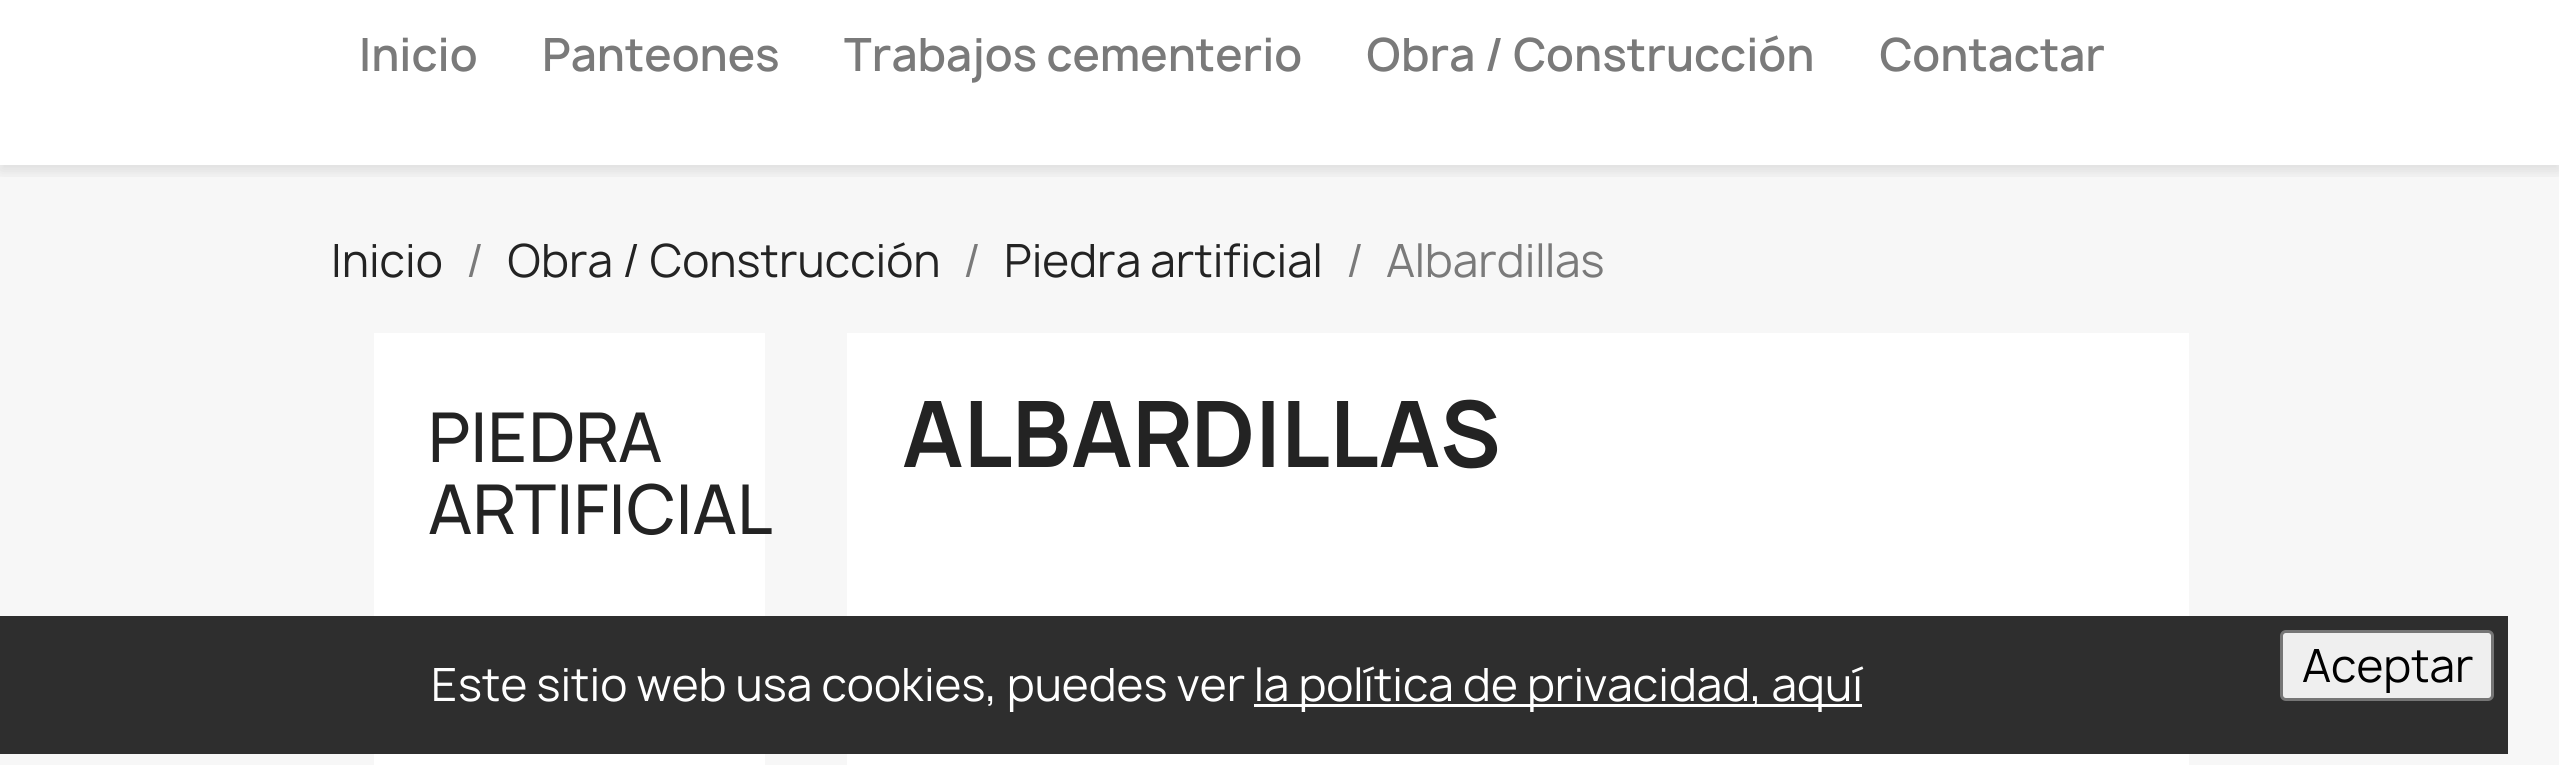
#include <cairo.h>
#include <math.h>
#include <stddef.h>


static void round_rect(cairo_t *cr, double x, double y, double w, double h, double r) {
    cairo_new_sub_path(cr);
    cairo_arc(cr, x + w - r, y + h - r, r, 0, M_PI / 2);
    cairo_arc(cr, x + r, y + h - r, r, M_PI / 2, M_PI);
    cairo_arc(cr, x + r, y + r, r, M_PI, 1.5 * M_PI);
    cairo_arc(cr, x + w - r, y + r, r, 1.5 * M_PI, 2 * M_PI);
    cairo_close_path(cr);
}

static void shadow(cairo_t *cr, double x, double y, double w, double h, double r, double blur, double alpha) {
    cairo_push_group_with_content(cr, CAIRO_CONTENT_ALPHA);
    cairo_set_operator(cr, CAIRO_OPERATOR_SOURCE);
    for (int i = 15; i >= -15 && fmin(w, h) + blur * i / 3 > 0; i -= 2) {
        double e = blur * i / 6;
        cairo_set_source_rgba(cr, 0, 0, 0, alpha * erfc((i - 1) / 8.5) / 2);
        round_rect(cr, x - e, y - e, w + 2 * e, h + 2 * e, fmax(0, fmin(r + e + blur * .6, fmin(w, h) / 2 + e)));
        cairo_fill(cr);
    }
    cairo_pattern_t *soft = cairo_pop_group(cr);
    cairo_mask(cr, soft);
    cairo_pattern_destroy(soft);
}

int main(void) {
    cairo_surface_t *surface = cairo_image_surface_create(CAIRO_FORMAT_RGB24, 2559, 765);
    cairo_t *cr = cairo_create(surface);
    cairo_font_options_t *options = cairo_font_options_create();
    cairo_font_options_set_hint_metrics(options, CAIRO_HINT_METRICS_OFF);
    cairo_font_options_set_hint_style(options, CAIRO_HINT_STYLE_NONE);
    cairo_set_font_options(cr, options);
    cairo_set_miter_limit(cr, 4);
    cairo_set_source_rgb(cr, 1, 1, 1);
    cairo_paint(cr);
    cairo_set_source_rgb(cr, 0.965, 0.965, 0.965);
    cairo_rectangle(cr, 0, 165, 2559, 600);
    cairo_fill(cr);
    cairo_save(cr);
    cairo_rectangle(cr, 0, 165, 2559, 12);
    cairo_clip(cr);
    cairo_set_source_rgb(cr, 0, 0, 0);
    shadow(cr, 0, -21, 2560, 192, 0, 7, 0.11);
    cairo_restore(cr);
    cairo_select_font_face(cr, "Manrope SemiBold", CAIRO_FONT_SLANT_NORMAL, CAIRO_FONT_WEIGHT_NORMAL);
    cairo_set_font_size(cr, 44);
    cairo_set_source_rgb(cr, 0.478, 0.478, 0.478);
    cairo_move_to(cr, 359, 71);
    cairo_show_text(cr, "Inicio");
    cairo_move_to(cr, 542, 71);
    cairo_show_text(cr, "Panteones");
    cairo_move_to(cr, 844, 71);
    cairo_show_text(cr, "Trabajos cementerio");
    cairo_move_to(cr, 1366, 71);
    cairo_show_text(cr, "Obra / Construcción");
    cairo_move_to(cr, 1879, 71);
    cairo_show_text(cr, "Contactar");
    cairo_select_font_face(cr, "Manrope", CAIRO_FONT_SLANT_NORMAL, CAIRO_FONT_WEIGHT_NORMAL);
    cairo_set_source_rgb(cr, 0.137, 0.137, 0.137);
    cairo_move_to(cr, 331, 277);
    cairo_show_text(cr, "Inicio");
    cairo_set_source_rgb(cr, 0.478, 0.478, 0.478);
    cairo_move_to(cr, 466, 277);
    cairo_show_text(cr, "/");
    cairo_set_source_rgb(cr, 0.137, 0.137, 0.137);
    cairo_move_to(cr, 507, 277);
    cairo_show_text(cr, "Obra / Construcción");
    cairo_set_source_rgb(cr, 0.478, 0.478, 0.478);
    cairo_move_to(cr, 963, 277);
    cairo_show_text(cr, "/");
    cairo_set_source_rgb(cr, 0.137, 0.137, 0.137);
    cairo_move_to(cr, 1004, 277);
    cairo_show_text(cr, "Piedra artificial");
    cairo_set_source_rgb(cr, 0.478, 0.478, 0.478);
    cairo_move_to(cr, 1346, 277);
    cairo_show_text(cr, "/");
    cairo_move_to(cr, 1386, 277);
    cairo_show_text(cr, "Albardillas");
    cairo_set_source_rgb(cr, 1, 1, 1);
    cairo_rectangle(cr, 374, 333, 391, 432);
    cairo_fill(cr);
    cairo_select_font_face(cr, "Manrope Medium", CAIRO_FONT_SLANT_NORMAL, CAIRO_FONT_WEIGHT_NORMAL);
    cairo_set_font_size(cr, 66);
    cairo_set_source_rgb(cr, 0.137, 0.137, 0.137);
    cairo_move_to(cr, 428, 462);
    cairo_show_text(cr, "PIEDRA");
    cairo_move_to(cr, 428, 534);
    cairo_show_text(cr, "ARTIFICIAL");
    cairo_set_source_rgb(cr, 1, 1, 1);
    cairo_rectangle(cr, 847, 333, 1342, 432);
    cairo_fill(cr);
    cairo_select_font_face(cr, "Manrope", CAIRO_FONT_SLANT_NORMAL, CAIRO_FONT_WEIGHT_BOLD);
    cairo_set_font_size(cr, 88);
    cairo_set_source_rgb(cr, 0.137, 0.137, 0.137);
    cairo_move_to(cr, 902, 467);
    cairo_show_text(cr, "ALBARDILLAS");
    cairo_set_source_rgb(cr, 0.18, 0.18, 0.18);
    cairo_rectangle(cr, 0, 616, 2508, 138);
    cairo_fill(cr);
    cairo_select_font_face(cr, "Manrope", CAIRO_FONT_SLANT_NORMAL, CAIRO_FONT_WEIGHT_NORMAL);
    cairo_set_font_size(cr, 44);
    cairo_set_source_rgb(cr, 1, 1, 1);
    cairo_move_to(cr, 431, 701);
    cairo_show_text(cr, "Este sitio web usa cookies, puedes ver");
    cairo_rectangle(cr, 1254, 704, 608, 3);
    cairo_fill(cr);
    cairo_move_to(cr, 1254, 701);
    cairo_show_text(cr, "la política de privacidad, aquí");
    cairo_set_source_rgb(cr, 0.937, 0.937, 0.937);
    round_rect(cr, 2281.5, 631.5, 211, 68, 4.5);
    cairo_fill_preserve(cr);
    cairo_set_source_rgb(cr, 0.463, 0.463, 0.463);
    cairo_set_line_width(cr, 3);
    cairo_stroke(cr);
    cairo_set_source_rgb(cr, 0, 0, 0);
    cairo_move_to(cr, 2302, 682);
    cairo_show_text(cr, "Aceptar");
    cairo_surface_write_to_png(surface, "page.png");
    cairo_font_options_destroy(options);
    cairo_destroy(cr);
    cairo_surface_destroy(surface);
    return 0;
}
